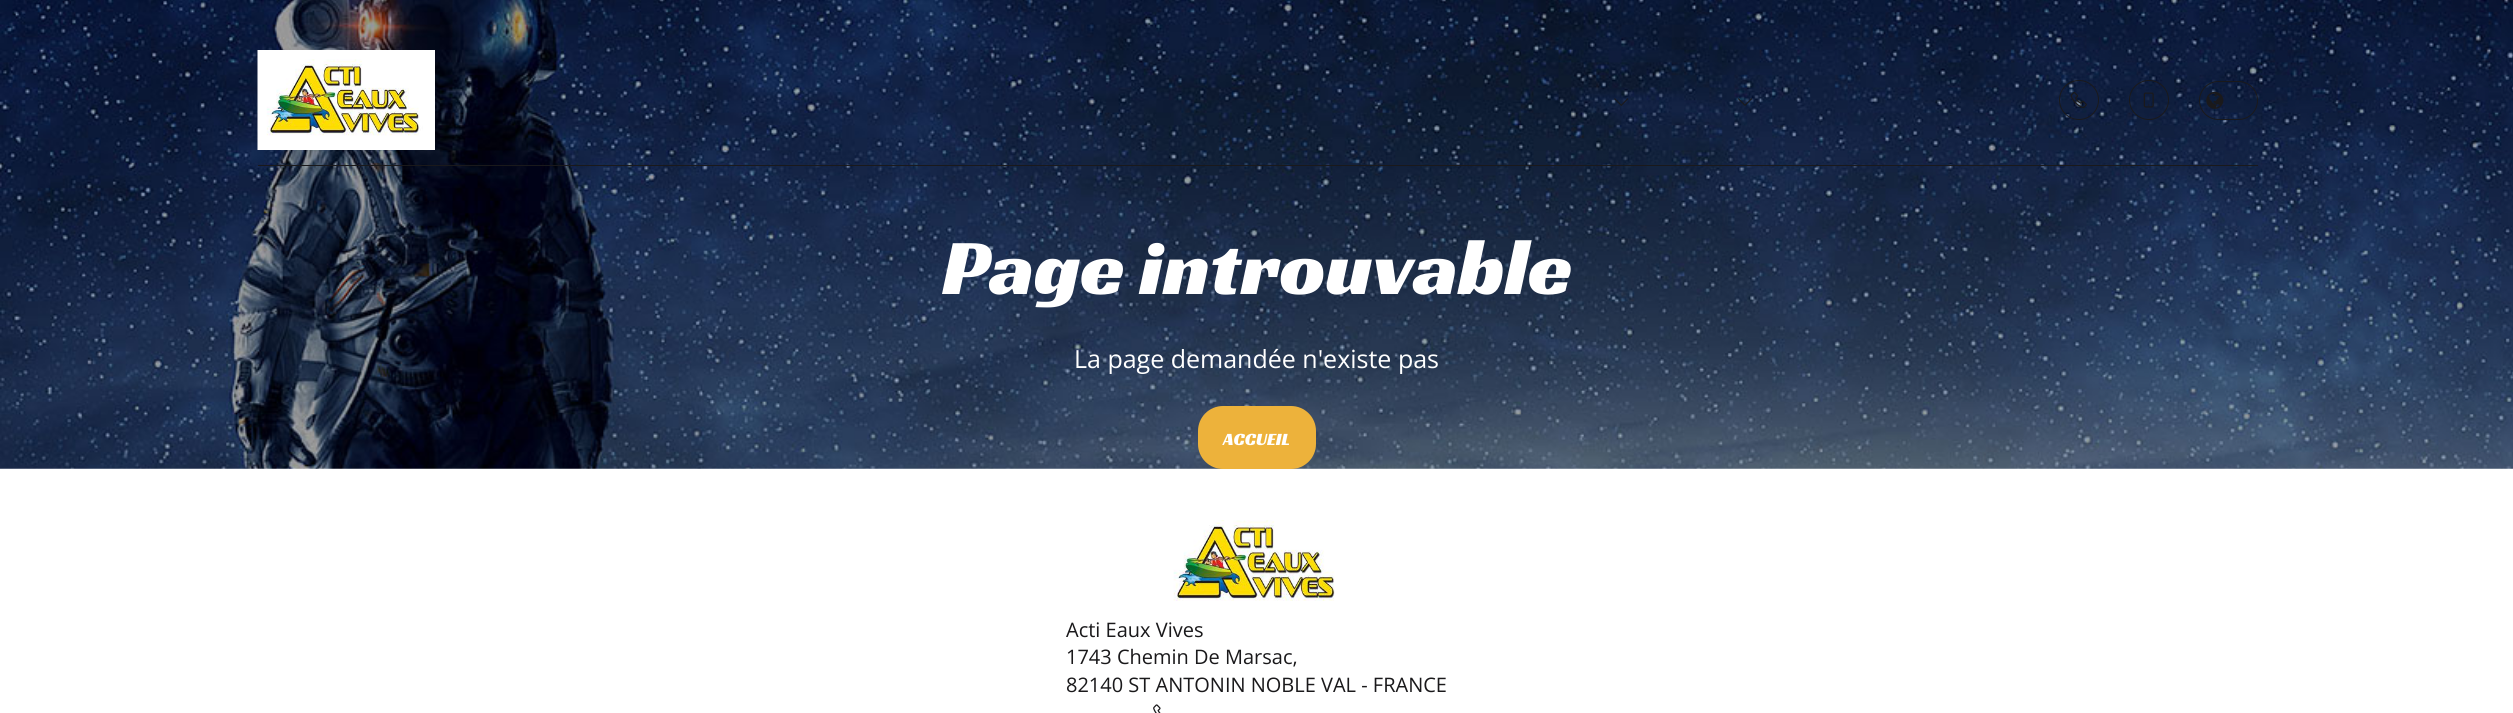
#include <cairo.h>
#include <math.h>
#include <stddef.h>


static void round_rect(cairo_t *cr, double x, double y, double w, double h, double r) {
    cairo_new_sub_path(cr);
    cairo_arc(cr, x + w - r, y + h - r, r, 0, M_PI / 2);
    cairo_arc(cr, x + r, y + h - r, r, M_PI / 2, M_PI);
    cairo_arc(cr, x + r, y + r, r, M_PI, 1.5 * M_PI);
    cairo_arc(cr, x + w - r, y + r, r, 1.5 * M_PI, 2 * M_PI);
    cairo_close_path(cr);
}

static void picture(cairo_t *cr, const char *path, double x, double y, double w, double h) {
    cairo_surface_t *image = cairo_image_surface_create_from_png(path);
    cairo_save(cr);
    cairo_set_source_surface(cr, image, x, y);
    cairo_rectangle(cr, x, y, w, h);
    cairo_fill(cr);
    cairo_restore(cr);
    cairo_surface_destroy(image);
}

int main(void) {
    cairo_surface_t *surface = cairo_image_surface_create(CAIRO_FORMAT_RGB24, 2513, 713);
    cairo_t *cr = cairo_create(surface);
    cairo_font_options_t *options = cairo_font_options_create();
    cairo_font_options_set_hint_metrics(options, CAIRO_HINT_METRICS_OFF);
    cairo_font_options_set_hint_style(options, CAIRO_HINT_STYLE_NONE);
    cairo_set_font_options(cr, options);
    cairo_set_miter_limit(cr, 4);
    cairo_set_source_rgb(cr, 1, 1, 1);
    cairo_paint(cr);
    picture(cr, "img1.png", 0, 0, 2513, 469);
    picture(cr, "img2.png", 257, 50, 178, 100);
    picture(cr, "img3.png", 1614, 98, 15, 8);
    picture(cr, "img4.png", 1738, 98, 14, 8);
    cairo_arc(cr, 2079, 100, 19.5, 0, 2 * M_PI);
    cairo_set_source_rgb(cr, 0.102, 0.098, 0.106);
    cairo_set_line_width(cr, 1);
    cairo_stroke(cr);
    picture(cr, "img5.png", 2070, 92, 17, 16);
    cairo_arc(cr, 2149, 100, 19.5, 0, 2 * M_PI);
    cairo_stroke(cr);
    picture(cr, "img6.png", 2143, 92, 11, 16);
    round_rect(cr, 2199.5, 81.5, 58, 38, 19);
    cairo_stroke(cr);
    picture(cr, "img7.png", 2206, 91, 18, 18);
    cairo_rectangle(cr, 258, 165, 2000, 1);
    cairo_fill(cr);
    cairo_select_font_face(cr, "Racing Sans One", CAIRO_FONT_SLANT_NORMAL, CAIRO_FONT_WEIGHT_NORMAL);
    cairo_set_font_size(cr, 80);
    cairo_set_source_rgb(cr, 1, 1, 1);
    cairo_move_to(cr, 942, 294);
    cairo_show_text(cr, "Page introuvable");
    cairo_select_font_face(cr, "Open Sans", CAIRO_FONT_SLANT_NORMAL, CAIRO_FONT_WEIGHT_NORMAL);
    cairo_set_font_size(cr, 25);
    cairo_move_to(cr, 1074, 368);
    cairo_show_text(cr, "La page demandée n'existe pas");
    cairo_set_source_rgb(cr, 0.929, 0.698, 0.231);
    round_rect(cr, 1198, 406, 118, 63, 25);
    cairo_fill(cr);
    cairo_select_font_face(cr, "Racing Sans One", CAIRO_FONT_SLANT_NORMAL, CAIRO_FONT_WEIGHT_NORMAL);
    cairo_set_font_size(cr, 17.5);
    cairo_set_source_rgb(cr, 1, 1, 1);
    cairo_move_to(cr, 1223, 445);
    cairo_show_text(cr, "ACCUEIL");
    picture(cr, "img8.png", 1173, 520, 162, 81);
    cairo_select_font_face(cr, "Open Sans", CAIRO_FONT_SLANT_NORMAL, CAIRO_FONT_WEIGHT_NORMAL);
    cairo_set_font_size(cr, 20);
    cairo_set_source_rgb(cr, 0.102, 0.098, 0.106);
    cairo_move_to(cr, 1066, 637);
    cairo_show_text(cr, "Acti Eaux Vives");
    cairo_move_to(cr, 1066, 664);
    cairo_show_text(cr, "1743 Chemin De Marsac,");
    cairo_move_to(cr, 1066, 692);
    cairo_show_text(cr, "82140 ST ANTONIN NOBLE VAL - FRANCE");
    picture(cr, "img9.png", 1153, 704, 8, 9);
    cairo_surface_write_to_png(surface, "page.png");
    cairo_font_options_destroy(options);
    cairo_destroy(cr);
    cairo_surface_destroy(surface);
    return 0;
}
